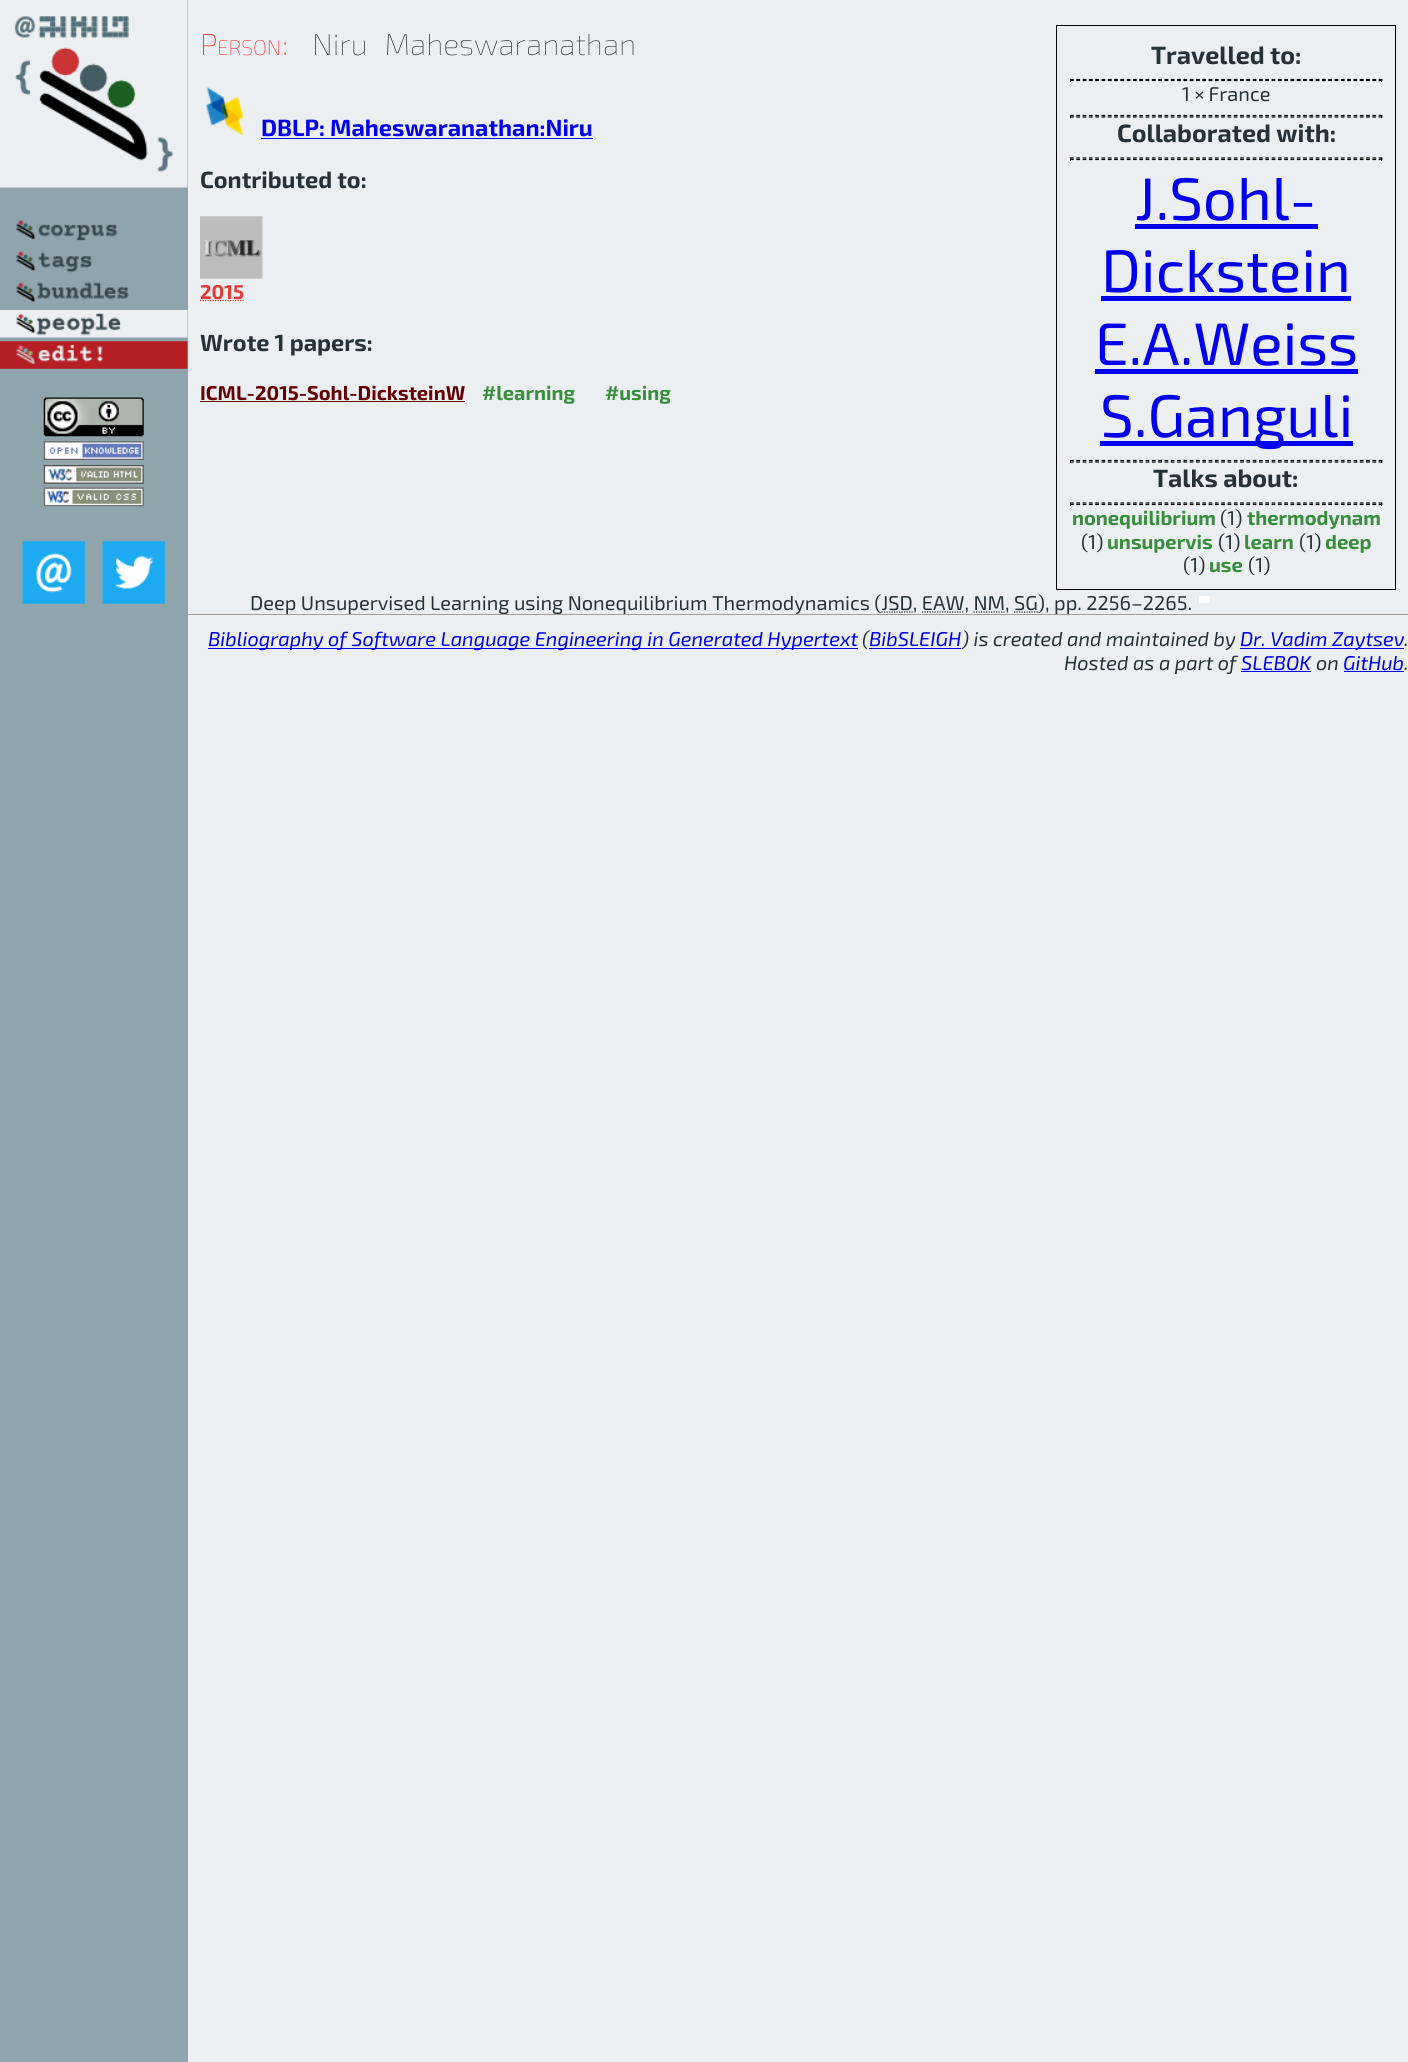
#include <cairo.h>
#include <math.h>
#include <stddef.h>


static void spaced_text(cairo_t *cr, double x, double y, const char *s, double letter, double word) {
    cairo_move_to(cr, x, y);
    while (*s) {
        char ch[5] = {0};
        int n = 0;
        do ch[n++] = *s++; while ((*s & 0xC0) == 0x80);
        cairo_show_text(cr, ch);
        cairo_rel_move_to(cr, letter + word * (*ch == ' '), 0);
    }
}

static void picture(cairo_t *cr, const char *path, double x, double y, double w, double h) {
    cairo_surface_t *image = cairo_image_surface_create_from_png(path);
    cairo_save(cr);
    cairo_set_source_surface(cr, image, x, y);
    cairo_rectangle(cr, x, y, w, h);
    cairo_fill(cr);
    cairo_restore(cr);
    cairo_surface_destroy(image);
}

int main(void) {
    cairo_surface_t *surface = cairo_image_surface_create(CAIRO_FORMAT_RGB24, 1408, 2062);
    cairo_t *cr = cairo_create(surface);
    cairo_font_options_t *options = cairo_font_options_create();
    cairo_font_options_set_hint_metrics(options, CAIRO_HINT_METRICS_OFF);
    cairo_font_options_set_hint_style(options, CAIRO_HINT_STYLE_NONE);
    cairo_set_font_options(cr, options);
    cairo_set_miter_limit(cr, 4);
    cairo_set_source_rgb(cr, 0.925, 0.937, 0.945);
    cairo_paint(cr);
    cairo_set_source_rgb(cr, 0.565, 0.643, 0.682);
    cairo_rectangle(cr, 0, 0, 188, 2062);
    cairo_fill(cr);
    picture(cr, "img1.png", 0, 0, 188, 188);
    picture(cr, "img2.png", 16, 219, 102, 22);
    picture(cr, "img3.png", 16, 251, 76, 22);
    picture(cr, "img4.png", 16, 282, 113, 21);
    picture(cr, "img5.png", 0, 310, 188, 28);
    picture(cr, "img6.png", 0, 341, 188, 28);
    picture(cr, "img7.png", 43, 397, 101, 40);
    picture(cr, "img8.png", 43, 441, 101, 19);
    picture(cr, "img9.png", 43, 465, 101, 19);
    picture(cr, "img10.png", 43, 487, 101, 20);
    picture(cr, "img11.png", 22, 541, 63, 63);
    picture(cr, "img12.png", 102, 541, 63, 63);
    cairo_select_font_face(cr, "Exo 2 Thin", CAIRO_FONT_SLANT_NORMAL, CAIRO_FONT_WEIGHT_NORMAL);
    cairo_set_font_size(cr, 30);
    cairo_set_source_rgb(cr, 1, 0, 0);
    cairo_move_to(cr, 200, 55);
    cairo_show_text(cr, "P");
    cairo_set_font_size(cr, 21);
    cairo_move_to(cr, 217, 55);
    cairo_show_text(cr, "ERSON");
    cairo_set_font_size(cr, 30);
    cairo_move_to(cr, 282, 55);
    cairo_show_text(cr, ":");
    cairo_set_source_rgb(cr, 0.149, 0.196, 0.22);
    spaced_text(cr, 312, 55, "Niru Maheswaranathan", 0, 10);
    cairo_rectangle(cr, 1056.5, 25.5, 339, 564);
    cairo_set_source_rgb(cr, 0, 0, 0);
    cairo_set_line_width(cr, 1);
    cairo_stroke(cr);
    cairo_select_font_face(cr, "Exo 2", CAIRO_FONT_SLANT_NORMAL, CAIRO_FONT_WEIGHT_BOLD);
    cairo_set_font_size(cr, 25);
    cairo_set_source_rgb(cr, 0.149, 0.196, 0.22);
    cairo_move_to(cr, 1151, 64);
    cairo_show_text(cr, "Travelled to:");
    cairo_new_path(cr);
    cairo_move_to(cr, 1070, 79.5);
    cairo_line_to(cr, 1382.5, 79.5);
    cairo_set_source_rgb(cr, 0, 0, 0);
    cairo_set_line_width(cr, 1.2);
    cairo_set_dash(cr, (double[]){3.75, 2.55}, 2, 0);
    cairo_stroke(cr);
    cairo_rectangle(cr, 1381, 79, 1, 3);
    cairo_fill(cr);
    cairo_new_path(cr);
    cairo_move_to(cr, 1070, 80.5);
    cairo_line_to(cr, 1382.5, 80.5);
    cairo_stroke(cr);
    cairo_rectangle(cr, 1070, 79, 1, 3);
    cairo_fill(cr);
    cairo_select_font_face(cr, "Exo 2", CAIRO_FONT_SLANT_NORMAL, CAIRO_FONT_WEIGHT_NORMAL);
    cairo_set_font_size(cr, 20);
    cairo_set_source_rgb(cr, 0.149, 0.196, 0.22);
    cairo_move_to(cr, 1182, 101);
    cairo_show_text(cr, "1 × France");
    cairo_new_path(cr);
    cairo_move_to(cr, 1070, 115.5);
    cairo_line_to(cr, 1382.5, 115.5);
    cairo_set_source_rgb(cr, 0, 0, 0);
    cairo_stroke(cr);
    cairo_rectangle(cr, 1381, 115, 1, 3);
    cairo_fill(cr);
    cairo_new_path(cr);
    cairo_move_to(cr, 1070, 117);
    cairo_line_to(cr, 1382.5, 117);
    cairo_stroke(cr);
    cairo_rectangle(cr, 1070, 115, 1, 3);
    cairo_fill(cr);
    cairo_select_font_face(cr, "Exo 2", CAIRO_FONT_SLANT_NORMAL, CAIRO_FONT_WEIGHT_BOLD);
    cairo_set_font_size(cr, 25);
    cairo_set_source_rgb(cr, 0.149, 0.196, 0.22);
    cairo_move_to(cr, 1117, 142);
    cairo_show_text(cr, "Collaborated with:");
    cairo_new_path(cr);
    cairo_move_to(cr, 1070, 158);
    cairo_line_to(cr, 1382.5, 158);
    cairo_set_source_rgb(cr, 0, 0, 0);
    cairo_stroke(cr);
    cairo_rectangle(cr, 1381, 158, 1, 3);
    cairo_fill(cr);
    cairo_new_path(cr);
    cairo_move_to(cr, 1070, 159.5);
    cairo_line_to(cr, 1382.5, 159.5);
    cairo_stroke(cr);
    cairo_rectangle(cr, 1070, 158, 1, 3);
    cairo_fill(cr);
    cairo_select_font_face(cr, "Exo 2", CAIRO_FONT_SLANT_NORMAL, CAIRO_FONT_WEIGHT_NORMAL);
    cairo_set_font_size(cr, 60);
    cairo_set_source_rgb(cr, 0, 0, 0.933);
    cairo_move_to(cr, 1135, 220);
    cairo_show_text(cr, "J.Sohl-");
    cairo_rectangle(cr, 1135, 224, 183, 5);
    cairo_fill(cr);
    cairo_move_to(cr, 1101, 292);
    cairo_show_text(cr, "Dickstein");
    cairo_rectangle(cr, 1101, 296, 250, 5);
    cairo_fill(cr);
    cairo_move_to(cr, 1095, 365);
    cairo_show_text(cr, "E.A.Weiss");
    cairo_rectangle(cr, 1095, 369, 263, 5);
    cairo_fill(cr);
    cairo_rectangle(cr, 1100, 441, 253, 5);
    cairo_fill(cr);
    cairo_move_to(cr, 1100, 437);
    cairo_show_text(cr, "S.Ganguli");
    cairo_new_path(cr);
    cairo_move_to(cr, 1070, 460.5);
    cairo_line_to(cr, 1382.5, 460.5);
    cairo_set_source_rgb(cr, 0, 0, 0);
    cairo_stroke(cr);
    cairo_rectangle(cr, 1381, 460, 1, 3);
    cairo_fill(cr);
    cairo_new_path(cr);
    cairo_move_to(cr, 1070, 462);
    cairo_line_to(cr, 1382.5, 462);
    cairo_stroke(cr);
    cairo_rectangle(cr, 1070, 460, 1, 3);
    cairo_fill(cr);
    cairo_select_font_face(cr, "Exo 2", CAIRO_FONT_SLANT_NORMAL, CAIRO_FONT_WEIGHT_BOLD);
    cairo_set_font_size(cr, 25);
    cairo_set_source_rgb(cr, 0.149, 0.196, 0.22);
    cairo_move_to(cr, 1153, 487);
    cairo_show_text(cr, "Talks about:");
    cairo_new_path(cr);
    cairo_move_to(cr, 1070, 503);
    cairo_line_to(cr, 1382.5, 503);
    cairo_set_source_rgb(cr, 0, 0, 0);
    cairo_stroke(cr);
    cairo_rectangle(cr, 1381, 503, 1, 3);
    cairo_fill(cr);
    cairo_new_path(cr);
    cairo_move_to(cr, 1070, 504.5);
    cairo_line_to(cr, 1382.5, 504.5);
    cairo_stroke(cr);
    cairo_rectangle(cr, 1070, 503, 1, 3);
    cairo_fill(cr);
    cairo_set_font_size(cr, 20);
    cairo_set_source_rgb(cr, 0.22, 0.557, 0.235);
    cairo_move_to(cr, 1072, 525);
    cairo_show_text(cr, "nonequilibrium");
    cairo_select_font_face(cr, "Exo 2", CAIRO_FONT_SLANT_NORMAL, CAIRO_FONT_WEIGHT_NORMAL);
    cairo_set_source_rgb(cr, 0.149, 0.196, 0.22);
    cairo_move_to(cr, 1220, 525);
    cairo_show_text(cr, "(1)");
    cairo_select_font_face(cr, "Exo 2", CAIRO_FONT_SLANT_NORMAL, CAIRO_FONT_WEIGHT_BOLD);
    cairo_set_source_rgb(cr, 0.22, 0.557, 0.235);
    cairo_move_to(cr, 1247, 525);
    cairo_show_text(cr, "thermodynam");
    cairo_select_font_face(cr, "Exo 2", CAIRO_FONT_SLANT_NORMAL, CAIRO_FONT_WEIGHT_NORMAL);
    cairo_set_source_rgb(cr, 0.149, 0.196, 0.22);
    cairo_move_to(cr, 1081, 549);
    cairo_show_text(cr, "(1)");
    cairo_select_font_face(cr, "Exo 2", CAIRO_FONT_SLANT_NORMAL, CAIRO_FONT_WEIGHT_BOLD);
    cairo_set_source_rgb(cr, 0.22, 0.557, 0.235);
    cairo_move_to(cr, 1107, 549);
    cairo_show_text(cr, "unsupervis");
    cairo_select_font_face(cr, "Exo 2", CAIRO_FONT_SLANT_NORMAL, CAIRO_FONT_WEIGHT_NORMAL);
    cairo_set_source_rgb(cr, 0.149, 0.196, 0.22);
    cairo_move_to(cr, 1218, 549);
    cairo_show_text(cr, "(1)");
    cairo_select_font_face(cr, "Exo 2", CAIRO_FONT_SLANT_NORMAL, CAIRO_FONT_WEIGHT_BOLD);
    cairo_set_source_rgb(cr, 0.22, 0.557, 0.235);
    cairo_move_to(cr, 1244, 549);
    cairo_show_text(cr, "learn");
    cairo_select_font_face(cr, "Exo 2", CAIRO_FONT_SLANT_NORMAL, CAIRO_FONT_WEIGHT_NORMAL);
    cairo_set_source_rgb(cr, 0.149, 0.196, 0.22);
    cairo_move_to(cr, 1299, 549);
    cairo_show_text(cr, "(1)");
    cairo_select_font_face(cr, "Exo 2", CAIRO_FONT_SLANT_NORMAL, CAIRO_FONT_WEIGHT_BOLD);
    cairo_set_source_rgb(cr, 0.22, 0.557, 0.235);
    cairo_move_to(cr, 1325, 549);
    cairo_show_text(cr, "deep");
    cairo_select_font_face(cr, "Exo 2", CAIRO_FONT_SLANT_NORMAL, CAIRO_FONT_WEIGHT_NORMAL);
    cairo_set_source_rgb(cr, 0.149, 0.196, 0.22);
    cairo_move_to(cr, 1183, 572);
    cairo_show_text(cr, "(1)");
    cairo_select_font_face(cr, "Exo 2", CAIRO_FONT_SLANT_NORMAL, CAIRO_FONT_WEIGHT_BOLD);
    cairo_set_source_rgb(cr, 0.22, 0.557, 0.235);
    cairo_move_to(cr, 1209, 572);
    cairo_show_text(cr, "use");
    cairo_select_font_face(cr, "Exo 2", CAIRO_FONT_SLANT_NORMAL, CAIRO_FONT_WEIGHT_NORMAL);
    cairo_set_source_rgb(cr, 0.149, 0.196, 0.22);
    cairo_move_to(cr, 1248, 572);
    cairo_show_text(cr, "(1)");
    picture(cr, "img13.png", 206, 87, 38, 49);
    cairo_select_font_face(cr, "Exo 2", CAIRO_FONT_SLANT_NORMAL, CAIRO_FONT_WEIGHT_BOLD);
    cairo_set_font_size(cr, 23.4);
    cairo_set_source_rgb(cr, 0, 0, 0.933);
    cairo_move_to(cr, 261, 136);
    cairo_show_text(cr, "DBLP: Maheswaranathan:Niru");
    cairo_rectangle(cr, 261, 138, 332, 1);
    cairo_fill(cr);
    cairo_set_source_rgb(cr, 0.149, 0.196, 0.22);
    cairo_move_to(cr, 200, 188);
    cairo_show_text(cr, "Contributed to:");
    picture(cr, "img14.png", 200, 216, 63, 63);
    cairo_new_path(cr);
    cairo_move_to(cr, 200, 300.5);
    cairo_line_to(cr, 244, 300.5);
    cairo_set_source_rgb(cr, 0.898, 0.224, 0.208);
    cairo_set_dash(cr, (double[]){1.25, 1.25}, 2, 0);
    cairo_stroke(cr);
    cairo_set_font_size(cr, 20);
    cairo_move_to(cr, 200, 299);
    cairo_show_text(cr, "2015");
    cairo_set_font_size(cr, 23.4);
    cairo_set_source_rgb(cr, 0.149, 0.196, 0.22);
    cairo_move_to(cr, 200, 351);
    cairo_show_text(cr, "Wrote 1 papers:");
    cairo_set_font_size(cr, 20);
    cairo_set_source_rgb(cr, 0.4, 0, 0);
    cairo_move_to(cr, 200, 400);
    cairo_show_text(cr, "ICML-2015-Sohl-DicksteinW");
    cairo_rectangle(cr, 200, 401, 265, 1);
    cairo_fill(cr);
    cairo_set_source_rgb(cr, 0.22, 0.557, 0.235);
    cairo_move_to(cr, 482, 400);
    cairo_show_text(cr, "#learning");
    cairo_move_to(cr, 605, 400);
    cairo_show_text(cr, "#using");
    cairo_select_font_face(cr, "Exo 2", CAIRO_FONT_SLANT_NORMAL, CAIRO_FONT_WEIGHT_NORMAL);
    cairo_set_source_rgb(cr, 0.149, 0.196, 0.22);
    cairo_move_to(cr, 250, 610);
    cairo_show_text(cr, "Deep Unsupervised Learning using Nonequilibrium Thermodynamics (JSD, EAW, NM, SG), pp. 2256–2265.");
    cairo_new_path(cr);
    cairo_move_to(cr, 881.5, 612);
    cairo_line_to(cr, 913, 612);
    cairo_stroke(cr);
    cairo_new_path(cr);
    cairo_move_to(cr, 922, 612);
    cairo_line_to(cr, 964.5, 612);
    cairo_stroke(cr);
    cairo_new_path(cr);
    cairo_move_to(cr, 973.5, 612);
    cairo_line_to(cr, 1005, 612);
    cairo_stroke(cr);
    cairo_new_path(cr);
    cairo_move_to(cr, 1014, 612);
    cairo_line_to(cr, 1038, 612);
    cairo_stroke(cr);
    cairo_set_source_rgb(cr, 1, 1, 1);
    cairo_rectangle(cr, 1199, 596, 11, 7);
    cairo_fill(cr);
    cairo_set_source_rgb(cr, 0.624, 0.624, 0.624);
    cairo_rectangle(cr, 188, 614, 1220, 1);
    cairo_fill(cr);
    cairo_set_source_rgb(cr, 0.933, 0.933, 0.933);
    cairo_rectangle(cr, 188, 615, 1220, 1);
    cairo_fill(cr);
    cairo_set_source_rgb(cr, 0, 0, 0.933);
    cairo_rectangle(cr, 208, 648, 650, 1);
    cairo_fill(cr);
    cairo_select_font_face(cr, "Exo 2", CAIRO_FONT_SLANT_ITALIC, CAIRO_FONT_WEIGHT_NORMAL);
    cairo_move_to(cr, 208, 646);
    cairo_show_text(cr, "Bibliography of Software Language Engineering in Generated Hypertext");
    cairo_set_source_rgb(cr, 0.149, 0.196, 0.22);
    cairo_move_to(cr, 862, 646);
    cairo_show_text(cr, "(");
    cairo_set_source_rgb(cr, 0, 0, 0.933);
    cairo_move_to(cr, 869, 646);
    cairo_show_text(cr, "BibSLEIGH");
    cairo_rectangle(cr, 869, 648, 92, 1);
    cairo_fill(cr);
    cairo_set_source_rgb(cr, 0.149, 0.196, 0.22);
    cairo_move_to(cr, 962, 646);
    cairo_show_text(cr, ") is created and maintained by");
    cairo_set_source_rgb(cr, 0, 0, 0.933);
    cairo_rectangle(cr, 1240, 648, 164, 1);
    cairo_fill(cr);
    cairo_move_to(cr, 1240, 646);
    cairo_show_text(cr, "Dr. Vadim Zaytsev");
    cairo_set_source_rgb(cr, 0.149, 0.196, 0.22);
    cairo_move_to(cr, 1404, 646);
    cairo_show_text(cr, ".");
    cairo_move_to(cr, 1064, 670);
    cairo_show_text(cr, "Hosted as a part of");
    cairo_set_source_rgb(cr, 0, 0, 0.933);
    cairo_rectangle(cr, 1241, 671, 70, 1);
    cairo_fill(cr);
    cairo_move_to(cr, 1241, 670);
    cairo_show_text(cr, "SLEBOK");
    cairo_set_source_rgb(cr, 0.149, 0.196, 0.22);
    cairo_move_to(cr, 1316, 670);
    cairo_show_text(cr, "on");
    cairo_set_source_rgb(cr, 0, 0, 0.933);
    cairo_move_to(cr, 1343, 670);
    cairo_show_text(cr, "GitHub");
    cairo_set_source_rgb(cr, 0.149, 0.196, 0.22);
    cairo_move_to(cr, 1404, 670);
    cairo_show_text(cr, ".");
    cairo_set_source_rgb(cr, 0, 0, 0.933);
    cairo_rectangle(cr, 1344, 671, 60, 1);
    cairo_fill(cr);
    cairo_surface_write_to_png(surface, "page.png");
    cairo_font_options_destroy(options);
    cairo_destroy(cr);
    cairo_surface_destroy(surface);
    return 0;
}
